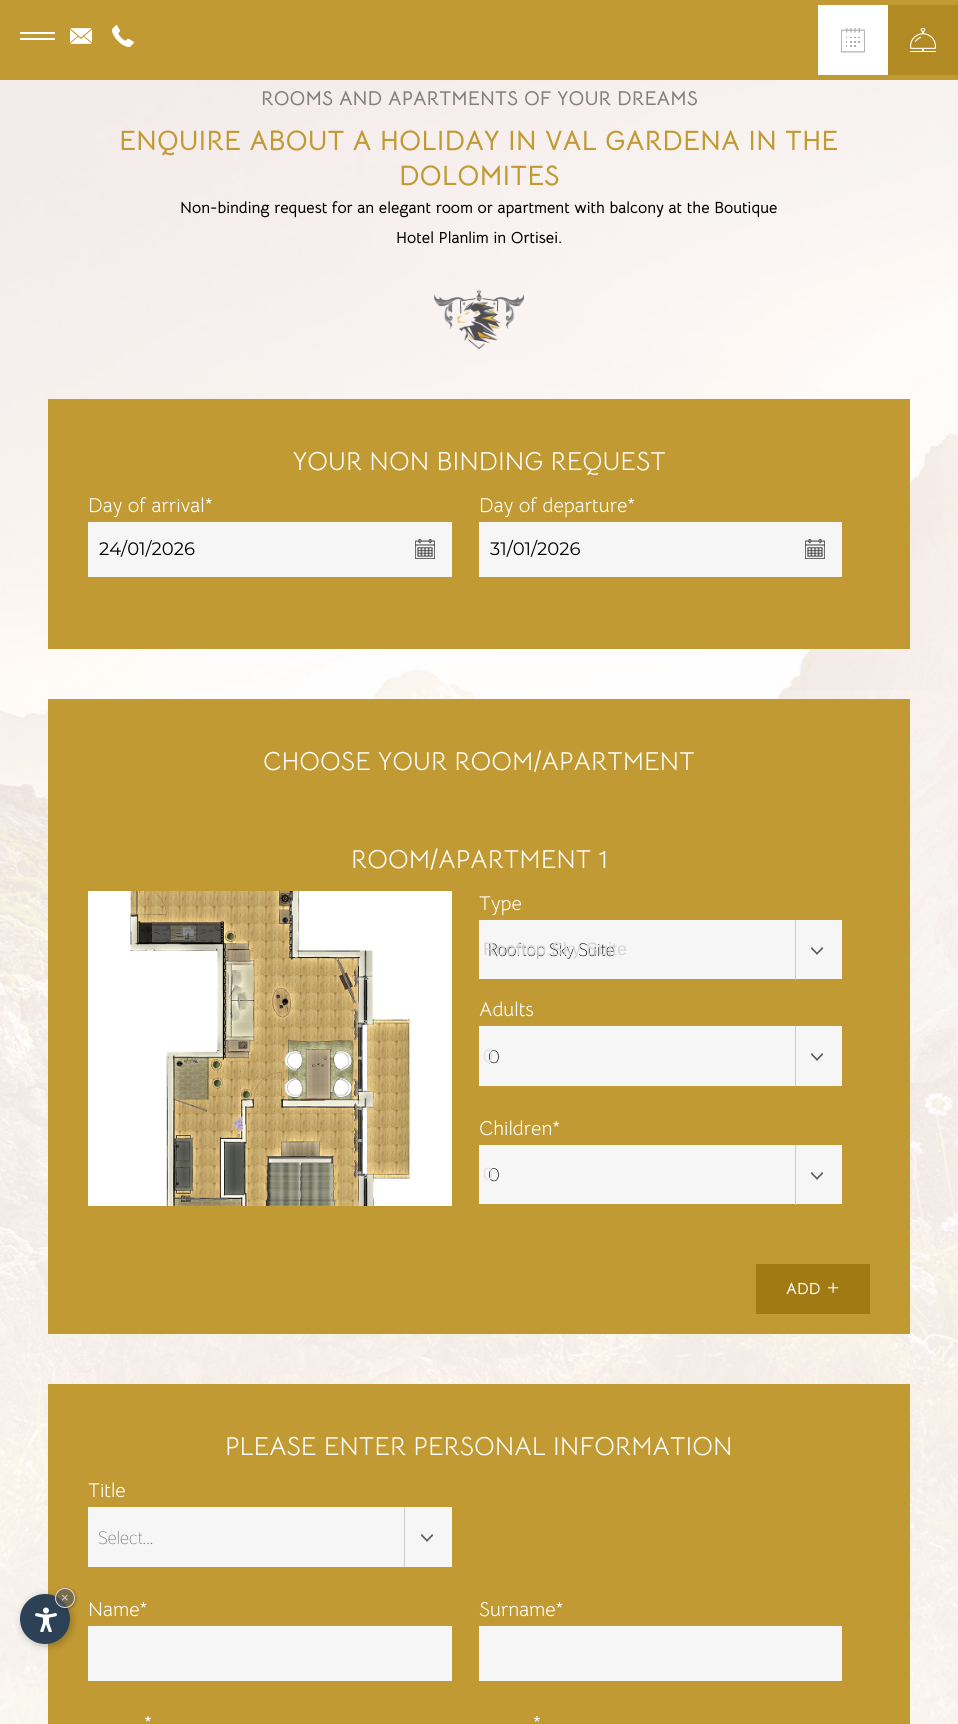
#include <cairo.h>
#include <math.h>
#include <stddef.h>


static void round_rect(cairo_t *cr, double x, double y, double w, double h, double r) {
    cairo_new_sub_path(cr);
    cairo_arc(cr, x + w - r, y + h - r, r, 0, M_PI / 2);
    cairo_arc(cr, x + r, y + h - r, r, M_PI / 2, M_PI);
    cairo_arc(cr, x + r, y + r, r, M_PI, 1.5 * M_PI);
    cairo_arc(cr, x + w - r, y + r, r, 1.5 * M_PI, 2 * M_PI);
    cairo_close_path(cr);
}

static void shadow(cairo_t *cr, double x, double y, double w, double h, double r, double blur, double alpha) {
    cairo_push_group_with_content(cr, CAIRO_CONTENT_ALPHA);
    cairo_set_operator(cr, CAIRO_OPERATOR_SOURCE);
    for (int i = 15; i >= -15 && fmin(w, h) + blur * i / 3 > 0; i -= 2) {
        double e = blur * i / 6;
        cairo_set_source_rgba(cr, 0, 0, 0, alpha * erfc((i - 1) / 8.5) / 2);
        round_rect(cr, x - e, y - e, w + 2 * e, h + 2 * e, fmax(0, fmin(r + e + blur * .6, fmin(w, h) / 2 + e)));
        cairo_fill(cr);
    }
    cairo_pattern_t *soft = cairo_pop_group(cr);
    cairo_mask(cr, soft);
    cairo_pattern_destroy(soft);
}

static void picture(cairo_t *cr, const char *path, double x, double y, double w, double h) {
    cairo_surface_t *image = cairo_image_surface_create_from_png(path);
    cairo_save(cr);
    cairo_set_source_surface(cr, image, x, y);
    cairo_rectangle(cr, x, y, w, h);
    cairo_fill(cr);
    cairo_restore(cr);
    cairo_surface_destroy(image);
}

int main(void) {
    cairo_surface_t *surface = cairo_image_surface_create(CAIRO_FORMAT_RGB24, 958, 1724);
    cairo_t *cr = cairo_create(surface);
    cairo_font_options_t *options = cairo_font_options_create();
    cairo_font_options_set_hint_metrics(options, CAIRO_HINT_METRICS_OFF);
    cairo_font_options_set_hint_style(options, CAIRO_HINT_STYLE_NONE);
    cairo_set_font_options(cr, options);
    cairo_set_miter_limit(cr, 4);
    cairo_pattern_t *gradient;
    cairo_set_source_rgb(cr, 1, 1, 1);
    cairo_paint(cr);
    cairo_set_source_rgb(cr, 0.757, 0.604, 0.204);
    cairo_rectangle(cr, 0, 0, 958, 80);
    cairo_fill(cr);
    picture(cr, "img1.png", 70, 28, 22, 16);
    picture(cr, "img2.png", 112, 25, 22, 22);
    cairo_set_source_rgb(cr, 1, 1, 1);
    cairo_rectangle(cr, 818, 5, 70, 70);
    cairo_fill(cr);
    picture(cr, "img3.png", 841, 28, 24, 25);
    cairo_set_source_rgb(cr, 0.694, 0.541, 0.141);
    cairo_rectangle(cr, 888, 5, 70, 70);
    cairo_fill(cr);
    picture(cr, "img4.png", 910, 28, 26, 24);
    cairo_set_source_rgb(cr, 1, 1, 1);
    cairo_rectangle(cr, 20, 32, 35, 2);
    cairo_fill(cr);
    cairo_rectangle(cr, 20, 38, 35, 2);
    cairo_fill(cr);
    picture(cr, "img6.png", 0, 80, 958, 1644);
    gradient = cairo_pattern_create_linear(479, 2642, 479, 479);
    cairo_pattern_add_color_stop_rgba(gradient, 0, 1, 1, 1, 1);
    cairo_pattern_add_color_stop_rgba(gradient, 1, 1, 1, 1, 0);
    cairo_set_source(cr, gradient);
    cairo_pattern_destroy(gradient);
    cairo_rectangle(cr, 0, 690, 958, 1034);
    cairo_fill(cr);
    cairo_set_source_rgb(cr, 0.757, 0.604, 0.204);
    cairo_rectangle(cr, 48, 1384, 862, 340);
    cairo_fill(cr);
    cairo_set_source_rgb(cr, 0, 0, 0);
    shadow(cr, 22, 1596, 50, 50, 25, 4, 0.25);
    cairo_set_source_rgb(cr, 0.176, 0.255, 0.337);
    cairo_arc(cr, 45, 1619, 25, 0, 2 * M_PI);
    cairo_fill(cr);
    picture(cr, "img5.png", 35, 1607, 22, 25);
    cairo_save(cr);
    cairo_set_fill_rule(cr, CAIRO_FILL_RULE_EVEN_ODD);
    cairo_new_path(cr);
    cairo_move_to(cr, 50, 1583);
    cairo_line_to(cr, 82, 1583);
    cairo_line_to(cr, 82, 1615);
    cairo_line_to(cr, 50, 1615);
    cairo_close_path(cr);
    cairo_move_to(cr, 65, 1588);
    cairo_curve_to(cr, 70.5, 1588, 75, 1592.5, 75, 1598);
    cairo_curve_to(cr, 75, 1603.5, 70.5, 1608, 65, 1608);
    cairo_curve_to(cr, 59.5, 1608, 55, 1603.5, 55, 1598);
    cairo_curve_to(cr, 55, 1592.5, 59.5, 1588, 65, 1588);
    cairo_close_path(cr);
    cairo_clip(cr);
    cairo_set_source_rgb(cr, 0, 0, 0);
    shadow(cr, 56, 1589, 20, 20, 10, 1.5, 0.3);
    cairo_restore(cr);
    cairo_set_source_rgba(cr, 0.353, 0.353, 0.353, 0.7);
    cairo_arc(cr, 65, 1598, 9.5, 0, 2 * M_PI);
    cairo_fill_preserve(cr);
    cairo_set_source_rgb(cr, 0.855, 0.855, 0.855);
    cairo_set_line_width(cr, 1);
    cairo_stroke(cr);
    cairo_select_font_face(cr, "Liberation Sans", CAIRO_FONT_SLANT_NORMAL, CAIRO_FONT_WEIGHT_NORMAL);
    cairo_set_font_size(cr, 13);
    cairo_set_source_rgb(cr, 0.839, 0.839, 0.839);
    cairo_move_to(cr, 61, 1602);
    cairo_show_text(cr, "×");
    cairo_select_font_face(cr, "Bellota Text", CAIRO_FONT_SLANT_NORMAL, CAIRO_FONT_WEIGHT_BOLD);
    cairo_set_font_size(cr, 20);
    cairo_set_source_rgb(cr, 0.502, 0.502, 0.502);
    cairo_move_to(cr, 261, 105);
    cairo_show_text(cr, "ROOMS AND APARTMENTS OF YOUR DREAMS");
    cairo_set_font_size(cr, 28);
    cairo_set_source_rgb(cr, 0.757, 0.604, 0.204);
    cairo_move_to(cr, 119, 150);
    cairo_show_text(cr, "ENQUIRE ABOUT A HOLIDAY IN VAL GARDENA IN THE");
    cairo_move_to(cr, 399, 185);
    cairo_show_text(cr, "DOLOMITES");
    cairo_set_font_size(cr, 16);
    cairo_set_source_rgb(cr, 0, 0, 0);
    cairo_move_to(cr, 180, 213);
    cairo_show_text(cr, "Non-binding request for an elegant room or apartment with balcony at the Boutique");
    cairo_move_to(cr, 396, 243);
    cairo_show_text(cr, "Hotel Planlim in Ortisei.");
    picture(cr, "img7.png", 434, 290, 90, 59);
    cairo_set_source_rgb(cr, 0.757, 0.604, 0.204);
    cairo_rectangle(cr, 48, 399, 862, 250);
    cairo_fill(cr);
    cairo_select_font_face(cr, "Bellota Text", CAIRO_FONT_SLANT_NORMAL, CAIRO_FONT_WEIGHT_NORMAL);
    cairo_set_font_size(cr, 26);
    cairo_set_source_rgb(cr, 1, 1, 1);
    cairo_move_to(cr, 293, 470);
    cairo_show_text(cr, "YOUR NON BINDING REQUEST");
    cairo_set_font_size(cr, 20);
    cairo_move_to(cr, 88, 512);
    cairo_show_text(cr, "Day of arrival*");
    cairo_set_source_rgb(cr, 0.961, 0.961, 0.961);
    cairo_rectangle(cr, 88, 522, 364, 55);
    cairo_fill(cr);
    picture(cr, "img8.png", 415, 539, 20, 20);
    cairo_select_font_face(cr, "Montserrat", CAIRO_FONT_SLANT_NORMAL, CAIRO_FONT_WEIGHT_NORMAL);
    cairo_set_font_size(cr, 18);
    cairo_set_source_rgb(cr, 0, 0, 0);
    cairo_move_to(cr, 99, 555);
    cairo_show_text(cr, "24/01/2026");
    cairo_select_font_face(cr, "Bellota Text", CAIRO_FONT_SLANT_NORMAL, CAIRO_FONT_WEIGHT_NORMAL);
    cairo_set_font_size(cr, 20);
    cairo_set_source_rgb(cr, 1, 1, 1);
    cairo_move_to(cr, 479, 512);
    cairo_show_text(cr, "Day of departure*");
    cairo_set_source_rgb(cr, 0.961, 0.961, 0.961);
    cairo_rectangle(cr, 479, 522, 363, 55);
    cairo_fill(cr);
    picture(cr, "img8.png", 805, 539, 20, 20);
    cairo_select_font_face(cr, "Montserrat", CAIRO_FONT_SLANT_NORMAL, CAIRO_FONT_WEIGHT_NORMAL);
    cairo_set_font_size(cr, 18);
    cairo_set_source_rgb(cr, 0, 0, 0);
    cairo_move_to(cr, 490, 555);
    cairo_show_text(cr, "31/01/2026");
    cairo_set_source_rgb(cr, 0.757, 0.604, 0.204);
    cairo_rectangle(cr, 48, 699, 862, 635);
    cairo_fill(cr);
    cairo_select_font_face(cr, "Bellota Text", CAIRO_FONT_SLANT_NORMAL, CAIRO_FONT_WEIGHT_NORMAL);
    cairo_set_font_size(cr, 26);
    cairo_set_source_rgb(cr, 1, 1, 1);
    cairo_move_to(cr, 263, 770);
    cairo_show_text(cr, "CHOOSE YOUR ROOM/APARTMENT");
    cairo_move_to(cr, 351, 868);
    cairo_show_text(cr, "ROOM/APARTMENT 1");
    picture(cr, "img9.png", 88, 891, 364, 315);
    cairo_set_font_size(cr, 20);
    cairo_move_to(cr, 479, 910);
    cairo_show_text(cr, "Type");
    cairo_set_source_rgb(cr, 0.961, 0.961, 0.961);
    cairo_rectangle(cr, 479, 920, 363, 59);
    cairo_fill(cr);
    cairo_select_font_face(cr, "Thasadith", CAIRO_FONT_SLANT_NORMAL, CAIRO_FONT_WEIGHT_NORMAL);
    cairo_set_font_size(cr, 18);
    cairo_set_source_rgb(cr, 0, 0, 0);
    cairo_move_to(cr, 488, 956);
    cairo_show_text(cr, "Rooftop Sky Suite");
    cairo_select_font_face(cr, "Liberation Sans", CAIRO_FONT_SLANT_NORMAL, CAIRO_FONT_WEIGHT_NORMAL);
    cairo_set_source_rgb(cr, 0.839, 0.839, 0.839);
    cairo_move_to(cr, 483, 955);
    cairo_show_text(cr, "Rooftop Sky Suite");
    cairo_set_source_rgb(cr, 0.8, 0.8, 0.8);
    cairo_rectangle(cr, 795, 920, 1, 60);
    cairo_fill(cr);
    picture(cr, "img10.png", 811, 947, 12, 8);
    cairo_select_font_face(cr, "Bellota Text", CAIRO_FONT_SLANT_NORMAL, CAIRO_FONT_WEIGHT_NORMAL);
    cairo_set_font_size(cr, 20);
    cairo_set_source_rgb(cr, 1, 1, 1);
    cairo_move_to(cr, 479, 1016);
    cairo_show_text(cr, "Adults");
    cairo_set_source_rgb(cr, 0.961, 0.961, 0.961);
    cairo_rectangle(cr, 479, 1026, 363, 60);
    cairo_fill(cr);
    cairo_select_font_face(cr, "Thasadith", CAIRO_FONT_SLANT_NORMAL, CAIRO_FONT_WEIGHT_NORMAL);
    cairo_set_font_size(cr, 18);
    cairo_set_source_rgb(cr, 0, 0, 0);
    cairo_move_to(cr, 488, 1063);
    cairo_show_text(cr, "0");
    cairo_select_font_face(cr, "Liberation Sans", CAIRO_FONT_SLANT_NORMAL, CAIRO_FONT_WEIGHT_NORMAL);
    cairo_set_source_rgb(cr, 0.894, 0.894, 0.894);
    cairo_move_to(cr, 483, 1062);
    cairo_show_text(cr, "0");
    cairo_set_source_rgb(cr, 0.8, 0.8, 0.8);
    cairo_rectangle(cr, 795, 1026, 1, 60);
    cairo_fill(cr);
    picture(cr, "img10.png", 811, 1053, 12, 8);
    cairo_select_font_face(cr, "Bellota Text", CAIRO_FONT_SLANT_NORMAL, CAIRO_FONT_WEIGHT_NORMAL);
    cairo_set_font_size(cr, 20);
    cairo_set_source_rgb(cr, 1, 1, 1);
    cairo_move_to(cr, 479, 1135);
    cairo_show_text(cr, "Children*");
    cairo_set_source_rgb(cr, 0.961, 0.961, 0.961);
    cairo_rectangle(cr, 479, 1145, 363, 59);
    cairo_fill(cr);
    cairo_select_font_face(cr, "Thasadith", CAIRO_FONT_SLANT_NORMAL, CAIRO_FONT_WEIGHT_NORMAL);
    cairo_set_font_size(cr, 18);
    cairo_set_source_rgb(cr, 0, 0, 0);
    cairo_move_to(cr, 488, 1181);
    cairo_show_text(cr, "0");
    cairo_select_font_face(cr, "Liberation Sans", CAIRO_FONT_SLANT_NORMAL, CAIRO_FONT_WEIGHT_NORMAL);
    cairo_set_source_rgb(cr, 0.894, 0.894, 0.894);
    cairo_move_to(cr, 483, 1180);
    cairo_show_text(cr, "0");
    cairo_set_source_rgb(cr, 0.8, 0.8, 0.8);
    cairo_rectangle(cr, 795, 1145, 1, 60);
    cairo_fill(cr);
    picture(cr, "img10.png", 811, 1172, 12, 8);
    cairo_set_source_rgb(cr, 0.631, 0.478, 0.078);
    cairo_rectangle(cr, 756, 1264, 114, 50);
    cairo_fill(cr);
    cairo_select_font_face(cr, "Bellota Text", CAIRO_FONT_SLANT_NORMAL, CAIRO_FONT_WEIGHT_BOLD);
    cairo_set_font_size(cr, 16);
    cairo_set_source_rgb(cr, 1, 1, 1);
    cairo_move_to(cr, 786, 1294);
    cairo_show_text(cr, "ADD");
    cairo_select_font_face(cr, "Bellota Text Light", CAIRO_FONT_SLANT_NORMAL, CAIRO_FONT_WEIGHT_NORMAL);
    cairo_set_font_size(cr, 28);
    cairo_move_to(cr, 826, 1296);
    cairo_show_text(cr, "+");
    cairo_select_font_face(cr, "Bellota Text", CAIRO_FONT_SLANT_NORMAL, CAIRO_FONT_WEIGHT_NORMAL);
    cairo_set_font_size(cr, 26);
    cairo_move_to(cr, 225, 1455);
    cairo_show_text(cr, "PLEASE ENTER PERSONAL INFORMATION");
    cairo_set_font_size(cr, 20);
    cairo_move_to(cr, 88, 1497);
    cairo_show_text(cr, "Title");
    cairo_set_source_rgb(cr, 0.961, 0.961, 0.961);
    cairo_rectangle(cr, 88, 1507, 364, 60);
    cairo_fill(cr);
    cairo_set_source_rgb(cr, 0.8, 0.8, 0.8);
    cairo_rectangle(cr, 404, 1507, 1, 60);
    cairo_fill(cr);
    cairo_select_font_face(cr, "Thasadith", CAIRO_FONT_SLANT_NORMAL, CAIRO_FONT_WEIGHT_NORMAL);
    cairo_set_font_size(cr, 18);
    cairo_set_source_rgb(cr, 0.459, 0.459, 0.459);
    cairo_move_to(cr, 98, 1544);
    cairo_show_text(cr, "Select...");
    picture(cr, "img10.png", 421, 1534, 12, 8);
    cairo_select_font_face(cr, "Bellota Text", CAIRO_FONT_SLANT_NORMAL, CAIRO_FONT_WEIGHT_NORMAL);
    cairo_set_font_size(cr, 20);
    cairo_set_source_rgb(cr, 1, 1, 1);
    cairo_move_to(cr, 88, 1616);
    cairo_show_text(cr, "Name*");
    cairo_set_source_rgb(cr, 0.961, 0.961, 0.961);
    cairo_rectangle(cr, 88, 1626, 364, 55);
    cairo_fill(cr);
    cairo_set_source_rgb(cr, 1, 1, 1);
    cairo_move_to(cr, 479, 1616);
    cairo_show_text(cr, "Surname*");
    cairo_set_source_rgb(cr, 0.961, 0.961, 0.961);
    cairo_rectangle(cr, 479, 1626, 363, 55);
    cairo_fill(cr);
    cairo_set_source_rgb(cr, 1, 1, 1);
    cairo_move_to(cr, 144, 1730);
    cairo_show_text(cr, "*");
    cairo_move_to(cr, 533, 1730);
    cairo_show_text(cr, "*");
    cairo_surface_write_to_png(surface, "page.png");
    cairo_font_options_destroy(options);
    cairo_destroy(cr);
    cairo_surface_destroy(surface);
    return 0;
}
